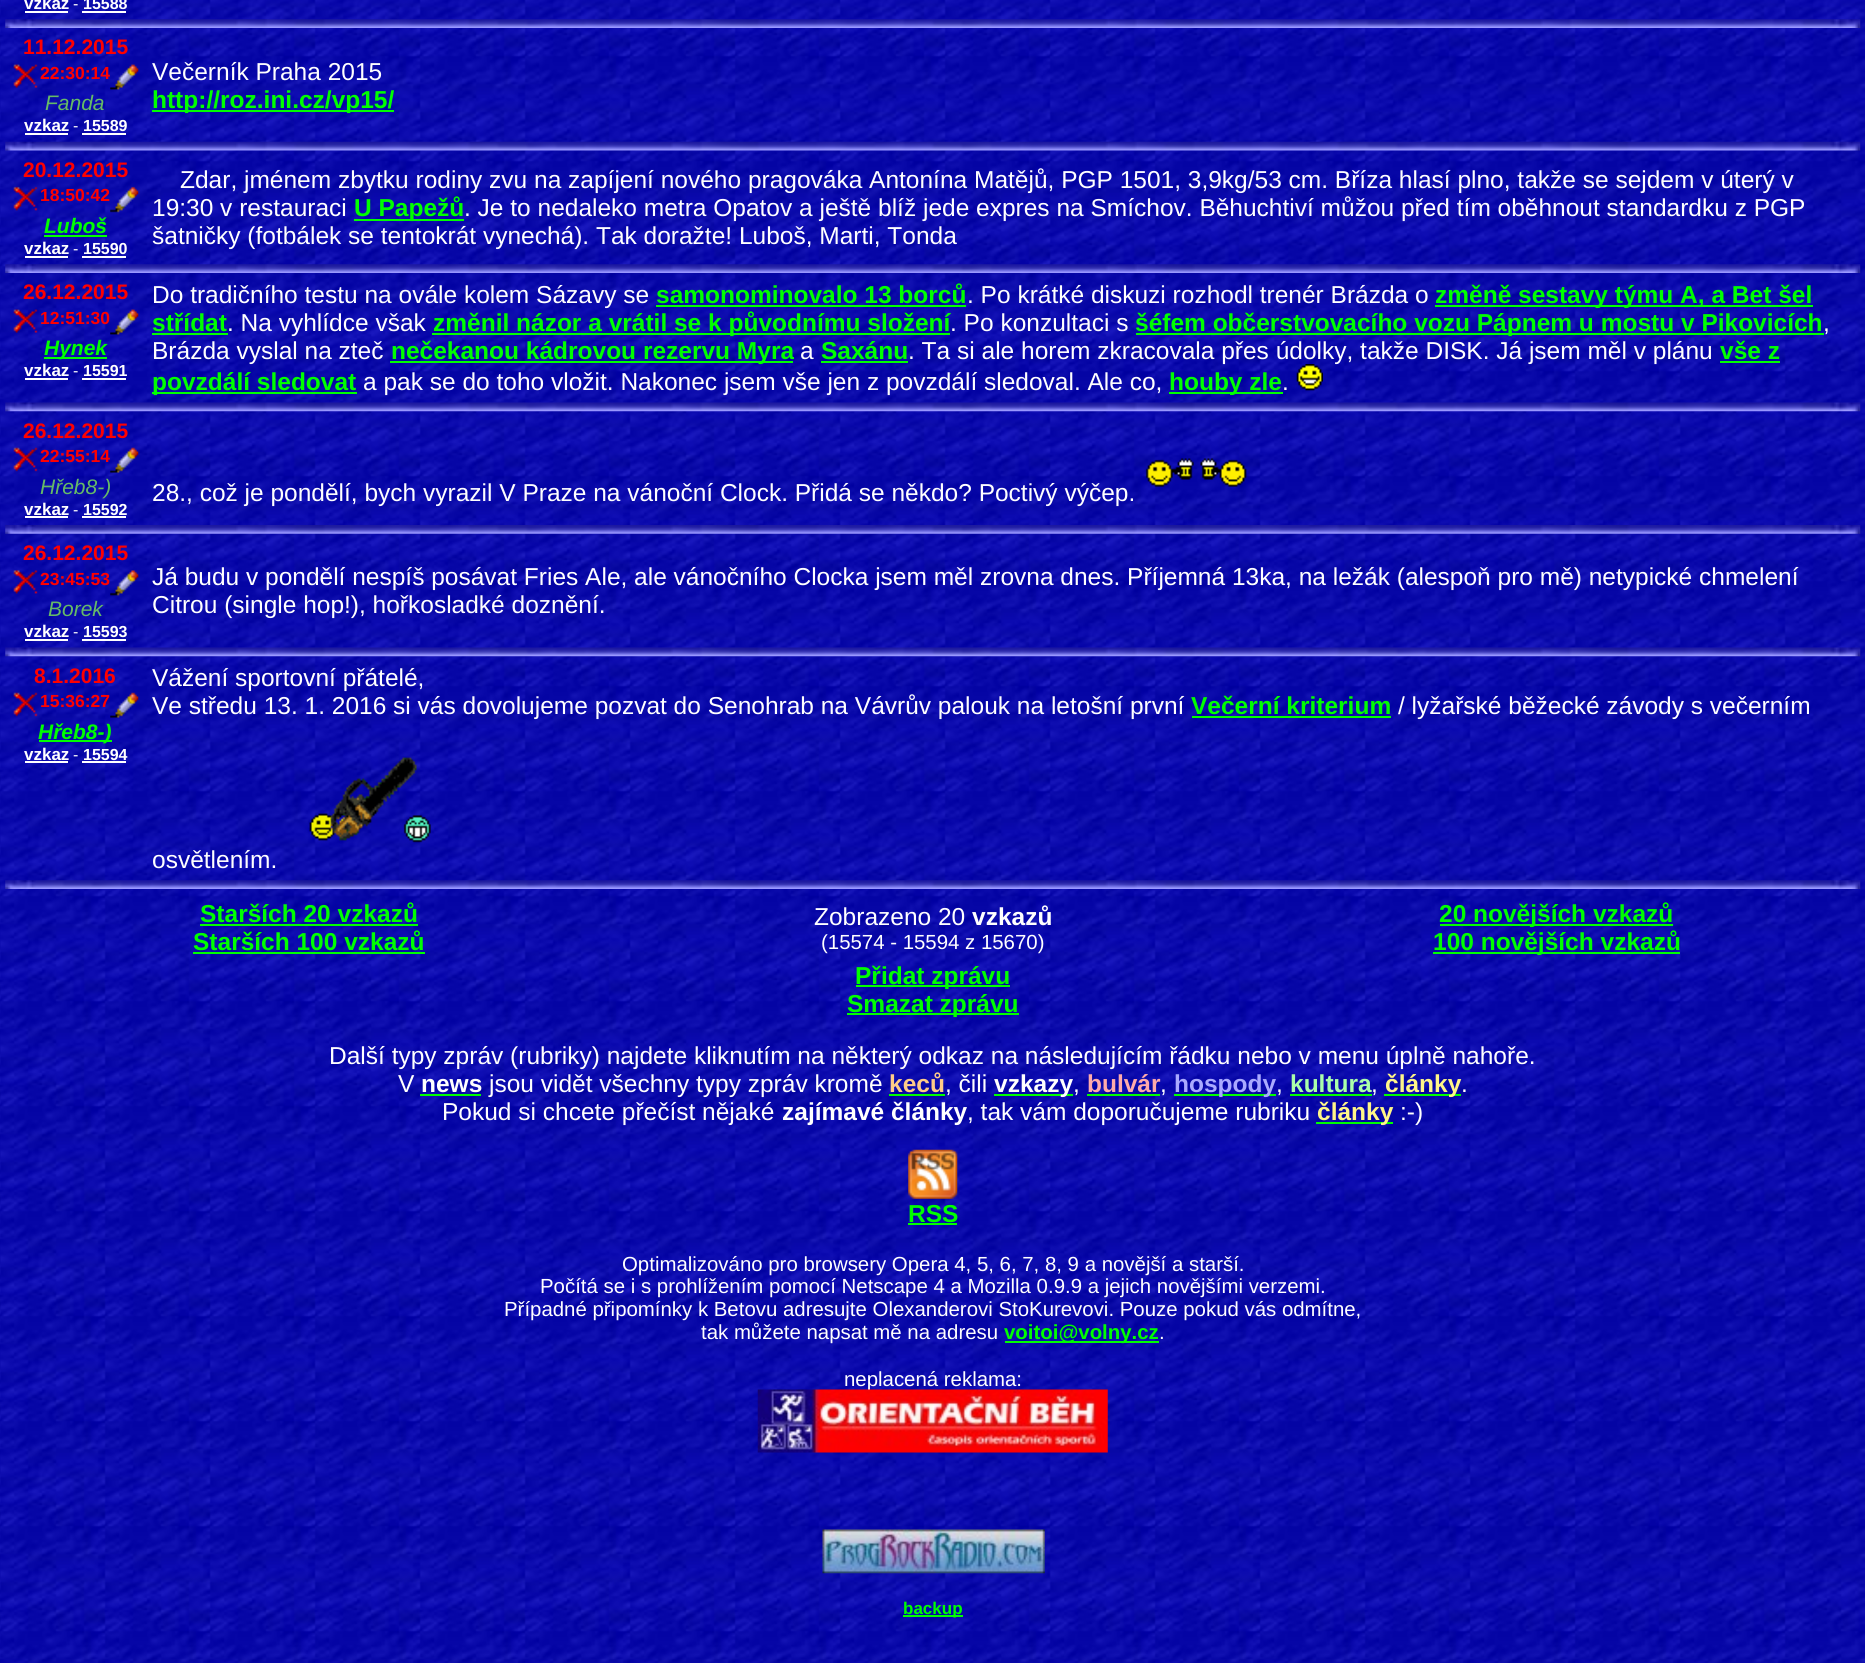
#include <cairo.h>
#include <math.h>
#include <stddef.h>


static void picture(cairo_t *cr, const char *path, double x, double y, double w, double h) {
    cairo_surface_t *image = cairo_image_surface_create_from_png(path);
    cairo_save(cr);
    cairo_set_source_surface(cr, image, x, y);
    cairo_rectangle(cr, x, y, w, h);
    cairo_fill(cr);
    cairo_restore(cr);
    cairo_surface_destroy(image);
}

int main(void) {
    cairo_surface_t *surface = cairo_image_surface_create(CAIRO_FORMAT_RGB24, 1865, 1663);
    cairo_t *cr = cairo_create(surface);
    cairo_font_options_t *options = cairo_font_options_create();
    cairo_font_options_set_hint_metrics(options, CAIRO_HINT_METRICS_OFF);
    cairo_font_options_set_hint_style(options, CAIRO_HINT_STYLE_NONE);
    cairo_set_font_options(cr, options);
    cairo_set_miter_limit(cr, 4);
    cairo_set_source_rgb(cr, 1, 1, 1);
    cairo_paint(cr);
    picture(cr, "img1.png", 0, 0, 1865, 1663);
    cairo_select_font_face(cr, "Liberation Sans", CAIRO_FONT_SLANT_NORMAL, CAIRO_FONT_WEIGHT_BOLD);
    cairo_set_font_size(cr, 17);
    cairo_set_source_rgb(cr, 1, 1, 1);
    cairo_move_to(cr, 24, 9);
    cairo_show_text(cr, "vzkaz");
    cairo_rectangle(cr, 25, 11, 43, 2);
    cairo_fill(cr);
    cairo_select_font_face(cr, "Liberation Sans", CAIRO_FONT_SLANT_NORMAL, CAIRO_FONT_WEIGHT_NORMAL);
    cairo_set_font_size(cr, 16);
    cairo_move_to(cr, 73, 9);
    cairo_show_text(cr, "-");
    cairo_select_font_face(cr, "Liberation Sans", CAIRO_FONT_SLANT_NORMAL, CAIRO_FONT_WEIGHT_BOLD);
    cairo_move_to(cr, 83, 9);
    cairo_show_text(cr, "15588");
    cairo_rectangle(cr, 82, 11, 44, 2);
    cairo_fill(cr);
    picture(cr, "img2.png", 5, 19, 1856, 9);
    cairo_set_font_size(cr, 21);
    cairo_set_source_rgb(cr, 1, 0, 0);
    cairo_move_to(cr, 23, 54);
    cairo_show_text(cr, "11.12.2015");
    picture(cr, "img3.png", 13, 64, 25, 24);
    cairo_set_font_size(cr, 17.5);
    cairo_move_to(cr, 40, 79);
    cairo_show_text(cr, "22:30:14");
    picture(cr, "img4.png", 110, 64, 29, 26);
    cairo_select_font_face(cr, "Liberation Sans", CAIRO_FONT_SLANT_ITALIC, CAIRO_FONT_WEIGHT_NORMAL);
    cairo_set_font_size(cr, 21);
    cairo_set_source_rgb(cr, 0.4, 0.733, 0.4);
    cairo_move_to(cr, 45, 110);
    cairo_show_text(cr, "Fanda");
    cairo_select_font_face(cr, "Liberation Sans", CAIRO_FONT_SLANT_NORMAL, CAIRO_FONT_WEIGHT_BOLD);
    cairo_set_font_size(cr, 17);
    cairo_set_source_rgb(cr, 1, 1, 1);
    cairo_move_to(cr, 24, 131);
    cairo_show_text(cr, "vzkaz");
    cairo_rectangle(cr, 25, 133, 43, 2);
    cairo_fill(cr);
    cairo_select_font_face(cr, "Liberation Sans", CAIRO_FONT_SLANT_NORMAL, CAIRO_FONT_WEIGHT_NORMAL);
    cairo_set_font_size(cr, 16);
    cairo_move_to(cr, 73, 131);
    cairo_show_text(cr, "-");
    cairo_select_font_face(cr, "Liberation Sans", CAIRO_FONT_SLANT_NORMAL, CAIRO_FONT_WEIGHT_BOLD);
    cairo_move_to(cr, 83, 131);
    cairo_show_text(cr, "15589");
    cairo_rectangle(cr, 82, 133, 44, 2);
    cairo_fill(cr);
    cairo_select_font_face(cr, "Liberation Sans", CAIRO_FONT_SLANT_NORMAL, CAIRO_FONT_WEIGHT_NORMAL);
    cairo_set_font_size(cr, 24.5);
    cairo_move_to(cr, 152, 80);
    cairo_show_text(cr, "Večerník Praha 2015");
    cairo_set_source_rgb(cr, 0, 1, 0);
    cairo_rectangle(cr, 152, 110, 242, 2);
    cairo_fill(cr);
    cairo_select_font_face(cr, "Liberation Sans", CAIRO_FONT_SLANT_NORMAL, CAIRO_FONT_WEIGHT_BOLD);
    cairo_move_to(cr, 152, 108);
    cairo_show_text(cr, "http://roz.ini.cz/vp15/");
    picture(cr, "img5.png", 5, 141, 1856, 10);
    cairo_set_font_size(cr, 21);
    cairo_set_source_rgb(cr, 1, 0, 0);
    cairo_move_to(cr, 23, 177);
    cairo_show_text(cr, "20.12.2015");
    picture(cr, "img6.png", 13, 186, 25, 25);
    cairo_set_font_size(cr, 17.5);
    cairo_move_to(cr, 40, 201);
    cairo_show_text(cr, "18:50:42");
    picture(cr, "img7.png", 110, 186, 29, 27);
    cairo_select_font_face(cr, "Liberation Sans", CAIRO_FONT_SLANT_ITALIC, CAIRO_FONT_WEIGHT_BOLD);
    cairo_set_font_size(cr, 21);
    cairo_set_source_rgb(cr, 0, 1, 0);
    cairo_move_to(cr, 44, 233);
    cairo_show_text(cr, "Luboš");
    cairo_rectangle(cr, 44, 235, 63, 2);
    cairo_fill(cr);
    cairo_select_font_face(cr, "Liberation Sans", CAIRO_FONT_SLANT_NORMAL, CAIRO_FONT_WEIGHT_BOLD);
    cairo_set_font_size(cr, 17);
    cairo_set_source_rgb(cr, 1, 1, 1);
    cairo_move_to(cr, 24, 254);
    cairo_show_text(cr, "vzkaz");
    cairo_rectangle(cr, 25, 256, 43, 2);
    cairo_fill(cr);
    cairo_select_font_face(cr, "Liberation Sans", CAIRO_FONT_SLANT_NORMAL, CAIRO_FONT_WEIGHT_NORMAL);
    cairo_set_font_size(cr, 16);
    cairo_move_to(cr, 73, 254);
    cairo_show_text(cr, "-");
    cairo_select_font_face(cr, "Liberation Sans", CAIRO_FONT_SLANT_NORMAL, CAIRO_FONT_WEIGHT_BOLD);
    cairo_move_to(cr, 83, 254);
    cairo_show_text(cr, "15590");
    cairo_rectangle(cr, 82, 256, 44, 2);
    cairo_fill(cr);
    cairo_select_font_face(cr, "Liberation Sans", CAIRO_FONT_SLANT_NORMAL, CAIRO_FONT_WEIGHT_NORMAL);
    cairo_set_font_size(cr, 24.5);
    cairo_move_to(cr, 180, 188);
    cairo_show_text(cr, "Zdar, jménem zbytku rodiny zvu na zapíjení nového pragováka Antonína Matějů, PGP 1501, 3,9kg/53 cm. Bříza hlasí plno, takže se sejdem v úterý v");
    cairo_move_to(cr, 152, 216);
    cairo_show_text(cr, "19:30 v restauraci");
    cairo_set_source_rgb(cr, 0, 1, 0);
    cairo_rectangle(cr, 354, 219, 110, 2);
    cairo_fill(cr);
    cairo_select_font_face(cr, "Liberation Sans", CAIRO_FONT_SLANT_NORMAL, CAIRO_FONT_WEIGHT_BOLD);
    cairo_move_to(cr, 354, 216);
    cairo_show_text(cr, "U Papežů");
    cairo_select_font_face(cr, "Liberation Sans", CAIRO_FONT_SLANT_NORMAL, CAIRO_FONT_WEIGHT_NORMAL);
    cairo_set_source_rgb(cr, 1, 1, 1);
    cairo_move_to(cr, 464, 216);
    cairo_show_text(cr, ". Je to nedaleko metra Opatov a ještě blíž jede expres na Smíchov. Běhuchtiví můžou před tím oběhnout standardku z PGP");
    cairo_move_to(cr, 152, 244);
    cairo_show_text(cr, "šatničky (fotbálek se tentokrát vynechá). Tak doražte! Luboš, Marti, Tonda");
    picture(cr, "img8.png", 5, 264, 1856, 9);
    cairo_select_font_face(cr, "Liberation Sans", CAIRO_FONT_SLANT_NORMAL, CAIRO_FONT_WEIGHT_BOLD);
    cairo_set_font_size(cr, 21);
    cairo_set_source_rgb(cr, 1, 0, 0);
    cairo_move_to(cr, 23, 299);
    cairo_show_text(cr, "26.12.2015");
    picture(cr, "img9.png", 13, 309, 25, 24);
    cairo_set_font_size(cr, 17.5);
    cairo_move_to(cr, 40, 324);
    cairo_show_text(cr, "12:51:30");
    picture(cr, "img10.png", 110, 309, 29, 26);
    cairo_set_source_rgb(cr, 0, 1, 0);
    cairo_rectangle(cr, 44, 357, 63, 2);
    cairo_fill(cr);
    cairo_select_font_face(cr, "Liberation Sans", CAIRO_FONT_SLANT_ITALIC, CAIRO_FONT_WEIGHT_BOLD);
    cairo_set_font_size(cr, 21);
    cairo_move_to(cr, 44, 355);
    cairo_show_text(cr, "Hynek");
    cairo_select_font_face(cr, "Liberation Sans", CAIRO_FONT_SLANT_NORMAL, CAIRO_FONT_WEIGHT_BOLD);
    cairo_set_font_size(cr, 17);
    cairo_set_source_rgb(cr, 1, 1, 1);
    cairo_move_to(cr, 24, 376);
    cairo_show_text(cr, "vzkaz");
    cairo_rectangle(cr, 25, 378, 43, 2);
    cairo_fill(cr);
    cairo_select_font_face(cr, "Liberation Sans", CAIRO_FONT_SLANT_NORMAL, CAIRO_FONT_WEIGHT_NORMAL);
    cairo_set_font_size(cr, 16);
    cairo_move_to(cr, 73, 376);
    cairo_show_text(cr, "-");
    cairo_select_font_face(cr, "Liberation Sans", CAIRO_FONT_SLANT_NORMAL, CAIRO_FONT_WEIGHT_BOLD);
    cairo_move_to(cr, 83, 376);
    cairo_show_text(cr, "15591");
    cairo_rectangle(cr, 82, 378, 44, 2);
    cairo_fill(cr);
    cairo_select_font_face(cr, "Liberation Sans", CAIRO_FONT_SLANT_NORMAL, CAIRO_FONT_WEIGHT_NORMAL);
    cairo_set_font_size(cr, 24.5);
    cairo_move_to(cr, 152, 303);
    cairo_show_text(cr, "Do tradičního testu na ovále kolem Sázavy se");
    cairo_select_font_face(cr, "Liberation Sans", CAIRO_FONT_SLANT_NORMAL, CAIRO_FONT_WEIGHT_BOLD);
    cairo_set_source_rgb(cr, 0, 1, 0);
    cairo_move_to(cr, 656, 303);
    cairo_show_text(cr, "samonominovalo 13 borců");
    cairo_rectangle(cr, 656, 305, 310, 2);
    cairo_fill(cr);
    cairo_select_font_face(cr, "Liberation Sans", CAIRO_FONT_SLANT_NORMAL, CAIRO_FONT_WEIGHT_NORMAL);
    cairo_set_source_rgb(cr, 1, 1, 1);
    cairo_move_to(cr, 967, 303);
    cairo_show_text(cr, ". Po krátké diskuzi rozhodl trenér Brázda o");
    cairo_set_source_rgb(cr, 0, 1, 0);
    cairo_rectangle(cr, 1435, 305, 378, 2);
    cairo_fill(cr);
    cairo_select_font_face(cr, "Liberation Sans", CAIRO_FONT_SLANT_NORMAL, CAIRO_FONT_WEIGHT_BOLD);
    cairo_move_to(cr, 1435, 303);
    cairo_show_text(cr, "změně sestavy týmu A, a Bet šel");
    cairo_move_to(cr, 152, 331);
    cairo_show_text(cr, "střídat");
    cairo_rectangle(cr, 152, 333, 76, 2);
    cairo_fill(cr);
    cairo_select_font_face(cr, "Liberation Sans", CAIRO_FONT_SLANT_NORMAL, CAIRO_FONT_WEIGHT_NORMAL);
    cairo_set_source_rgb(cr, 1, 1, 1);
    cairo_move_to(cr, 227, 331);
    cairo_show_text(cr, ". Na vyhlídce však");
    cairo_set_source_rgb(cr, 0, 1, 0);
    cairo_rectangle(cr, 432, 333, 518, 2);
    cairo_fill(cr);
    cairo_select_font_face(cr, "Liberation Sans", CAIRO_FONT_SLANT_NORMAL, CAIRO_FONT_WEIGHT_BOLD);
    cairo_move_to(cr, 433, 331);
    cairo_show_text(cr, "změnil názor a vrátil se k původnímu složení");
    cairo_select_font_face(cr, "Liberation Sans", CAIRO_FONT_SLANT_NORMAL, CAIRO_FONT_WEIGHT_NORMAL);
    cairo_set_source_rgb(cr, 1, 1, 1);
    cairo_move_to(cr, 950, 331);
    cairo_show_text(cr, ". Po konzultaci s");
    cairo_set_source_rgb(cr, 0, 1, 0);
    cairo_rectangle(cr, 1136, 333, 688, 2);
    cairo_fill(cr);
    cairo_select_font_face(cr, "Liberation Sans", CAIRO_FONT_SLANT_NORMAL, CAIRO_FONT_WEIGHT_BOLD);
    cairo_move_to(cr, 1135, 331);
    cairo_show_text(cr, "šéfem občerstvovacího vozu Pápnem u mostu v Pikovicích");
    cairo_select_font_face(cr, "Liberation Sans", CAIRO_FONT_SLANT_NORMAL, CAIRO_FONT_WEIGHT_NORMAL);
    cairo_set_source_rgb(cr, 1, 1, 1);
    cairo_move_to(cr, 1823, 331);
    cairo_show_text(cr, ",");
    cairo_move_to(cr, 152, 359);
    cairo_show_text(cr, "Brázda vyslal na zteč");
    cairo_set_source_rgb(cr, 0, 1, 0);
    cairo_rectangle(cr, 390, 361, 403, 2);
    cairo_fill(cr);
    cairo_select_font_face(cr, "Liberation Sans", CAIRO_FONT_SLANT_NORMAL, CAIRO_FONT_WEIGHT_BOLD);
    cairo_move_to(cr, 391, 359);
    cairo_show_text(cr, "nečekanou kádrovou rezervu Myra");
    cairo_select_font_face(cr, "Liberation Sans", CAIRO_FONT_SLANT_NORMAL, CAIRO_FONT_WEIGHT_NORMAL);
    cairo_set_source_rgb(cr, 1, 1, 1);
    cairo_move_to(cr, 800, 359);
    cairo_show_text(cr, "a");
    cairo_select_font_face(cr, "Liberation Sans", CAIRO_FONT_SLANT_NORMAL, CAIRO_FONT_WEIGHT_BOLD);
    cairo_set_source_rgb(cr, 0, 1, 0);
    cairo_move_to(cr, 821, 359);
    cairo_show_text(cr, "Saxánu");
    cairo_rectangle(cr, 821, 361, 87, 2);
    cairo_fill(cr);
    cairo_select_font_face(cr, "Liberation Sans", CAIRO_FONT_SLANT_NORMAL, CAIRO_FONT_WEIGHT_NORMAL);
    cairo_set_source_rgb(cr, 1, 1, 1);
    cairo_move_to(cr, 908, 359);
    cairo_show_text(cr, ". Ta si ale horem zkracovala přes údolky, takže DISK. Já jsem měl v plánu");
    cairo_select_font_face(cr, "Liberation Sans", CAIRO_FONT_SLANT_NORMAL, CAIRO_FONT_WEIGHT_BOLD);
    cairo_set_source_rgb(cr, 0, 1, 0);
    cairo_move_to(cr, 1720, 359);
    cairo_show_text(cr, "vše z");
    cairo_rectangle(cr, 1720, 361, 60, 2);
    cairo_fill(cr);
    cairo_rectangle(cr, 152, 392, 205, 2);
    cairo_fill(cr);
    cairo_move_to(cr, 152, 390);
    cairo_show_text(cr, "povzdálí sledovat");
    cairo_select_font_face(cr, "Liberation Sans", CAIRO_FONT_SLANT_NORMAL, CAIRO_FONT_WEIGHT_NORMAL);
    cairo_set_source_rgb(cr, 1, 1, 1);
    cairo_move_to(cr, 363, 390);
    cairo_show_text(cr, "a pak se do toho vložit. Nakonec jsem vše jen z povzdálí sledoval. Ale co,");
    cairo_set_source_rgb(cr, 0, 1, 0);
    cairo_rectangle(cr, 1169, 392, 114, 2);
    cairo_fill(cr);
    cairo_select_font_face(cr, "Liberation Sans", CAIRO_FONT_SLANT_NORMAL, CAIRO_FONT_WEIGHT_BOLD);
    cairo_move_to(cr, 1169, 390);
    cairo_show_text(cr, "houby zle");
    cairo_select_font_face(cr, "Liberation Sans", CAIRO_FONT_SLANT_NORMAL, CAIRO_FONT_WEIGHT_NORMAL);
    cairo_set_source_rgb(cr, 1, 1, 1);
    cairo_move_to(cr, 1282, 390);
    cairo_show_text(cr, ".");
    picture(cr, "img11.png", 1296, 364, 27, 27);
    picture(cr, "img12.png", 5, 402, 1856, 10);
    cairo_select_font_face(cr, "Liberation Sans", CAIRO_FONT_SLANT_NORMAL, CAIRO_FONT_WEIGHT_BOLD);
    cairo_set_font_size(cr, 21);
    cairo_set_source_rgb(cr, 1, 0, 0);
    cairo_move_to(cr, 23, 438);
    cairo_show_text(cr, "26.12.2015");
    picture(cr, "img13.png", 13, 447, 25, 25);
    cairo_set_font_size(cr, 17.5);
    cairo_move_to(cr, 40, 462);
    cairo_show_text(cr, "22:55:14");
    picture(cr, "img14.png", 110, 447, 29, 26);
    cairo_select_font_face(cr, "Liberation Sans", CAIRO_FONT_SLANT_ITALIC, CAIRO_FONT_WEIGHT_NORMAL);
    cairo_set_font_size(cr, 21);
    cairo_set_source_rgb(cr, 0.4, 0.733, 0.4);
    cairo_move_to(cr, 40, 494);
    cairo_show_text(cr, "Hřeb8-)");
    cairo_select_font_face(cr, "Liberation Sans", CAIRO_FONT_SLANT_NORMAL, CAIRO_FONT_WEIGHT_BOLD);
    cairo_set_font_size(cr, 17);
    cairo_set_source_rgb(cr, 1, 1, 1);
    cairo_move_to(cr, 24, 515);
    cairo_show_text(cr, "vzkaz");
    cairo_rectangle(cr, 25, 516, 43, 2);
    cairo_fill(cr);
    cairo_select_font_face(cr, "Liberation Sans", CAIRO_FONT_SLANT_NORMAL, CAIRO_FONT_WEIGHT_NORMAL);
    cairo_set_font_size(cr, 16);
    cairo_move_to(cr, 73, 515);
    cairo_show_text(cr, "-");
    cairo_select_font_face(cr, "Liberation Sans", CAIRO_FONT_SLANT_NORMAL, CAIRO_FONT_WEIGHT_BOLD);
    cairo_move_to(cr, 83, 515);
    cairo_show_text(cr, "15592");
    cairo_rectangle(cr, 82, 516, 44, 2);
    cairo_fill(cr);
    picture(cr, "img15.png", 1145, 458, 102, 29);
    cairo_select_font_face(cr, "Liberation Sans", CAIRO_FONT_SLANT_NORMAL, CAIRO_FONT_WEIGHT_NORMAL);
    cairo_set_font_size(cr, 24.5);
    cairo_move_to(cr, 152, 501);
    cairo_show_text(cr, "28., což je pondělí, bych vyrazil V Praze na vánoční Clock. Přidá se někdo? Poctivý výčep.");
    picture(cr, "img16.png", 5, 525, 1856, 9);
    cairo_select_font_face(cr, "Liberation Sans", CAIRO_FONT_SLANT_NORMAL, CAIRO_FONT_WEIGHT_BOLD);
    cairo_set_font_size(cr, 21);
    cairo_set_source_rgb(cr, 1, 0, 0);
    cairo_move_to(cr, 23, 560);
    cairo_show_text(cr, "26.12.2015");
    picture(cr, "img17.png", 13, 570, 25, 24);
    cairo_set_font_size(cr, 17.5);
    cairo_move_to(cr, 40, 585);
    cairo_show_text(cr, "23:45:53");
    picture(cr, "img18.png", 110, 570, 29, 26);
    cairo_select_font_face(cr, "Liberation Sans", CAIRO_FONT_SLANT_ITALIC, CAIRO_FONT_WEIGHT_NORMAL);
    cairo_set_font_size(cr, 21);
    cairo_set_source_rgb(cr, 0.4, 0.733, 0.4);
    cairo_move_to(cr, 48, 616);
    cairo_show_text(cr, "Borek");
    cairo_select_font_face(cr, "Liberation Sans", CAIRO_FONT_SLANT_NORMAL, CAIRO_FONT_WEIGHT_BOLD);
    cairo_set_font_size(cr, 17);
    cairo_set_source_rgb(cr, 1, 1, 1);
    cairo_move_to(cr, 24, 637);
    cairo_show_text(cr, "vzkaz");
    cairo_rectangle(cr, 25, 639, 43, 2);
    cairo_fill(cr);
    cairo_select_font_face(cr, "Liberation Sans", CAIRO_FONT_SLANT_NORMAL, CAIRO_FONT_WEIGHT_NORMAL);
    cairo_set_font_size(cr, 16);
    cairo_move_to(cr, 73, 637);
    cairo_show_text(cr, "-");
    cairo_select_font_face(cr, "Liberation Sans", CAIRO_FONT_SLANT_NORMAL, CAIRO_FONT_WEIGHT_BOLD);
    cairo_move_to(cr, 83, 637);
    cairo_show_text(cr, "15593");
    cairo_rectangle(cr, 82, 639, 44, 2);
    cairo_fill(cr);
    cairo_select_font_face(cr, "Liberation Sans", CAIRO_FONT_SLANT_NORMAL, CAIRO_FONT_WEIGHT_NORMAL);
    cairo_set_font_size(cr, 24.5);
    cairo_move_to(cr, 152, 585);
    cairo_show_text(cr, "Já budu v pondělí nespíš posávat Fries Ale, ale vánočního Clocka jsem měl zrovna dnes. Příjemná 13ka, na ležák (alespoň pro mě) netypické chmelení");
    cairo_move_to(cr, 152, 613);
    cairo_show_text(cr, "Citrou (single hop!), hořkosladké doznění.");
    picture(cr, "img19.png", 5, 647, 1856, 10);
    cairo_select_font_face(cr, "Liberation Sans", CAIRO_FONT_SLANT_NORMAL, CAIRO_FONT_WEIGHT_BOLD);
    cairo_set_font_size(cr, 21);
    cairo_set_source_rgb(cr, 1, 0, 0);
    cairo_move_to(cr, 34, 683);
    cairo_show_text(cr, "8.1.2016");
    picture(cr, "img20.png", 13, 692, 25, 25);
    cairo_set_font_size(cr, 17.5);
    cairo_move_to(cr, 40, 707);
    cairo_show_text(cr, "15:36:27");
    picture(cr, "img21.png", 110, 692, 29, 26);
    cairo_set_source_rgb(cr, 0, 1, 0);
    cairo_rectangle(cr, 39, 740, 73, 2);
    cairo_fill(cr);
    cairo_select_font_face(cr, "Liberation Sans", CAIRO_FONT_SLANT_ITALIC, CAIRO_FONT_WEIGHT_BOLD);
    cairo_set_font_size(cr, 21);
    cairo_move_to(cr, 38, 739);
    cairo_show_text(cr, "Hřeb8-)");
    cairo_select_font_face(cr, "Liberation Sans", CAIRO_FONT_SLANT_NORMAL, CAIRO_FONT_WEIGHT_BOLD);
    cairo_set_font_size(cr, 17);
    cairo_set_source_rgb(cr, 1, 1, 1);
    cairo_move_to(cr, 24, 760);
    cairo_show_text(cr, "vzkaz");
    cairo_rectangle(cr, 25, 761, 43, 2);
    cairo_fill(cr);
    cairo_select_font_face(cr, "Liberation Sans", CAIRO_FONT_SLANT_NORMAL, CAIRO_FONT_WEIGHT_NORMAL);
    cairo_set_font_size(cr, 16);
    cairo_move_to(cr, 73, 760);
    cairo_show_text(cr, "-");
    cairo_select_font_face(cr, "Liberation Sans", CAIRO_FONT_SLANT_NORMAL, CAIRO_FONT_WEIGHT_BOLD);
    cairo_move_to(cr, 83, 760);
    cairo_show_text(cr, "15594");
    cairo_rectangle(cr, 82, 761, 44, 2);
    cairo_fill(cr);
    cairo_select_font_face(cr, "Liberation Sans", CAIRO_FONT_SLANT_NORMAL, CAIRO_FONT_WEIGHT_NORMAL);
    cairo_set_font_size(cr, 24.5);
    cairo_move_to(cr, 152, 686);
    cairo_show_text(cr, "Vážení sportovní přátelé,");
    cairo_move_to(cr, 152, 714);
    cairo_show_text(cr, "Ve středu 13. 1. 2016 si vás dovolujeme pozvat do Senohrab na Vávrův palouk na letošní první");
    cairo_select_font_face(cr, "Liberation Sans", CAIRO_FONT_SLANT_NORMAL, CAIRO_FONT_WEIGHT_BOLD);
    cairo_set_source_rgb(cr, 0, 1, 0);
    cairo_move_to(cr, 1191, 714);
    cairo_show_text(cr, "Večerní kriterium");
    cairo_rectangle(cr, 1192, 716, 199, 2);
    cairo_fill(cr);
    cairo_select_font_face(cr, "Liberation Sans", CAIRO_FONT_SLANT_NORMAL, CAIRO_FONT_WEIGHT_NORMAL);
    cairo_set_source_rgb(cr, 1, 1, 1);
    cairo_move_to(cr, 1398, 714);
    cairo_show_text(cr, "/ lyžařské běžecké závody s večerním");
    picture(cr, "img22.png", 309, 757, 122, 86);
    cairo_move_to(cr, 152, 868);
    cairo_show_text(cr, "osvětlením.");
    picture(cr, "img23.png", 5, 880, 1856, 9);
    cairo_select_font_face(cr, "Liberation Sans", CAIRO_FONT_SLANT_NORMAL, CAIRO_FONT_WEIGHT_BOLD);
    cairo_set_source_rgb(cr, 0, 1, 0);
    cairo_move_to(cr, 200, 922);
    cairo_show_text(cr, "Starších 20 vzkazů");
    cairo_rectangle(cr, 200, 924, 218, 2);
    cairo_fill(cr);
    cairo_move_to(cr, 193, 950);
    cairo_show_text(cr, "Starších 100 vzkazů");
    cairo_rectangle(cr, 193, 952, 232, 2);
    cairo_fill(cr);
    cairo_select_font_face(cr, "Liberation Sans", CAIRO_FONT_SLANT_NORMAL, CAIRO_FONT_WEIGHT_NORMAL);
    cairo_set_source_rgb(cr, 1, 1, 1);
    cairo_move_to(cr, 814, 925);
    cairo_show_text(cr, "Zobrazeno 20");
    cairo_select_font_face(cr, "Liberation Sans", CAIRO_FONT_SLANT_NORMAL, CAIRO_FONT_WEIGHT_BOLD);
    cairo_move_to(cr, 972, 925);
    cairo_show_text(cr, "vzkazů");
    cairo_select_font_face(cr, "Liberation Sans", CAIRO_FONT_SLANT_NORMAL, CAIRO_FONT_WEIGHT_NORMAL);
    cairo_set_font_size(cr, 20.4);
    cairo_move_to(cr, 821, 949);
    cairo_show_text(cr, "(15574 - 15594 z 15670)");
    cairo_set_source_rgb(cr, 0, 1, 0);
    cairo_rectangle(cr, 1440, 924, 233, 2);
    cairo_fill(cr);
    cairo_select_font_face(cr, "Liberation Sans", CAIRO_FONT_SLANT_NORMAL, CAIRO_FONT_WEIGHT_BOLD);
    cairo_set_font_size(cr, 24.5);
    cairo_move_to(cr, 1439, 922);
    cairo_show_text(cr, "20 novějších vzkazů");
    cairo_rectangle(cr, 1433, 952, 247, 2);
    cairo_fill(cr);
    cairo_move_to(cr, 1433, 950);
    cairo_show_text(cr, "100 novějších vzkazů");
    cairo_rectangle(cr, 856, 985, 154, 2);
    cairo_fill(cr);
    cairo_move_to(cr, 855, 984);
    cairo_show_text(cr, "Přidat zprávu");
    cairo_rectangle(cr, 847, 1013, 172, 2);
    cairo_fill(cr);
    cairo_move_to(cr, 847, 1012);
    cairo_show_text(cr, "Smazat zprávu");
    cairo_select_font_face(cr, "Liberation Sans", CAIRO_FONT_SLANT_NORMAL, CAIRO_FONT_WEIGHT_NORMAL);
    cairo_set_source_rgb(cr, 1, 1, 1);
    cairo_move_to(cr, 329, 1064);
    cairo_show_text(cr, "Další typy zpráv (rubriky) najdete kliknutím na některý odkaz na následujícím řádku nebo v menu úplně nahoře.");
    cairo_move_to(cr, 398, 1092);
    cairo_show_text(cr, "V");
    cairo_select_font_face(cr, "Liberation Sans", CAIRO_FONT_SLANT_NORMAL, CAIRO_FONT_WEIGHT_BOLD);
    cairo_move_to(cr, 421, 1092);
    cairo_show_text(cr, "news");
    cairo_set_source_rgb(cr, 0, 1, 0);
    cairo_rectangle(cr, 420, 1094, 61, 2);
    cairo_fill(cr);
    cairo_select_font_face(cr, "Liberation Sans", CAIRO_FONT_SLANT_NORMAL, CAIRO_FONT_WEIGHT_NORMAL);
    cairo_set_source_rgb(cr, 1, 1, 1);
    cairo_move_to(cr, 489, 1092);
    cairo_show_text(cr, "jsou vidět všechny typy zpráv kromě");
    cairo_select_font_face(cr, "Liberation Sans", CAIRO_FONT_SLANT_NORMAL, CAIRO_FONT_WEIGHT_BOLD);
    cairo_set_source_rgb(cr, 1, 0.8, 0.533);
    cairo_move_to(cr, 889, 1092);
    cairo_show_text(cr, "keců");
    cairo_set_source_rgb(cr, 0, 1, 0);
    cairo_rectangle(cr, 889, 1094, 56, 2);
    cairo_fill(cr);
    cairo_select_font_face(cr, "Liberation Sans", CAIRO_FONT_SLANT_NORMAL, CAIRO_FONT_WEIGHT_NORMAL);
    cairo_set_source_rgb(cr, 1, 1, 1);
    cairo_move_to(cr, 945, 1092);
    cairo_show_text(cr, ", čili");
    cairo_set_source_rgb(cr, 0, 1, 0);
    cairo_rectangle(cr, 994, 1094, 79, 2);
    cairo_fill(cr);
    cairo_select_font_face(cr, "Liberation Sans", CAIRO_FONT_SLANT_NORMAL, CAIRO_FONT_WEIGHT_BOLD);
    cairo_set_source_rgb(cr, 1, 1, 1);
    cairo_move_to(cr, 994, 1092);
    cairo_show_text(cr, "vzkazy");
    cairo_select_font_face(cr, "Liberation Sans", CAIRO_FONT_SLANT_NORMAL, CAIRO_FONT_WEIGHT_NORMAL);
    cairo_move_to(cr, 1073, 1092);
    cairo_show_text(cr, ",");
    cairo_select_font_face(cr, "Liberation Sans", CAIRO_FONT_SLANT_NORMAL, CAIRO_FONT_WEIGHT_BOLD);
    cairo_set_source_rgb(cr, 1, 0.667, 0.667);
    cairo_move_to(cr, 1087, 1092);
    cairo_show_text(cr, "bulvár");
    cairo_set_source_rgb(cr, 0, 1, 0);
    cairo_rectangle(cr, 1087, 1094, 73, 2);
    cairo_fill(cr);
    cairo_select_font_face(cr, "Liberation Sans", CAIRO_FONT_SLANT_NORMAL, CAIRO_FONT_WEIGHT_NORMAL);
    cairo_set_source_rgb(cr, 1, 1, 1);
    cairo_move_to(cr, 1160, 1092);
    cairo_show_text(cr, ",");
    cairo_set_source_rgb(cr, 0, 1, 0);
    cairo_rectangle(cr, 1174, 1094, 102, 2);
    cairo_fill(cr);
    cairo_select_font_face(cr, "Liberation Sans", CAIRO_FONT_SLANT_NORMAL, CAIRO_FONT_WEIGHT_BOLD);
    cairo_set_source_rgb(cr, 0.667, 0.667, 1);
    cairo_move_to(cr, 1174, 1092);
    cairo_show_text(cr, "hospody");
    cairo_select_font_face(cr, "Liberation Sans", CAIRO_FONT_SLANT_NORMAL, CAIRO_FONT_WEIGHT_NORMAL);
    cairo_set_source_rgb(cr, 1, 1, 1);
    cairo_move_to(cr, 1276, 1092);
    cairo_show_text(cr, ",");
    cairo_select_font_face(cr, "Liberation Sans", CAIRO_FONT_SLANT_NORMAL, CAIRO_FONT_WEIGHT_BOLD);
    cairo_set_source_rgb(cr, 0.667, 1, 0.667);
    cairo_move_to(cr, 1290, 1092);
    cairo_show_text(cr, "kultura");
    cairo_set_source_rgb(cr, 0, 1, 0);
    cairo_rectangle(cr, 1290, 1094, 82, 2);
    cairo_fill(cr);
    cairo_select_font_face(cr, "Liberation Sans", CAIRO_FONT_SLANT_NORMAL, CAIRO_FONT_WEIGHT_NORMAL);
    cairo_set_source_rgb(cr, 1, 1, 1);
    cairo_move_to(cr, 1371, 1092);
    cairo_show_text(cr, ",");
    cairo_set_source_rgb(cr, 0, 1, 0);
    cairo_rectangle(cr, 1384, 1094, 77, 2);
    cairo_fill(cr);
    cairo_select_font_face(cr, "Liberation Sans", CAIRO_FONT_SLANT_NORMAL, CAIRO_FONT_WEIGHT_BOLD);
    cairo_set_source_rgb(cr, 1, 0.961, 0.533);
    cairo_move_to(cr, 1385, 1092);
    cairo_show_text(cr, "články");
    cairo_select_font_face(cr, "Liberation Sans", CAIRO_FONT_SLANT_NORMAL, CAIRO_FONT_WEIGHT_NORMAL);
    cairo_set_source_rgb(cr, 1, 1, 1);
    cairo_move_to(cr, 1461, 1092);
    cairo_show_text(cr, ".");
    cairo_move_to(cr, 442, 1120);
    cairo_show_text(cr, "Pokud si chcete přečíst nějaké");
    cairo_select_font_face(cr, "Liberation Sans", CAIRO_FONT_SLANT_NORMAL, CAIRO_FONT_WEIGHT_BOLD);
    cairo_move_to(cr, 782, 1120);
    cairo_show_text(cr, "zajímavé články");
    cairo_select_font_face(cr, "Liberation Sans", CAIRO_FONT_SLANT_NORMAL, CAIRO_FONT_WEIGHT_NORMAL);
    cairo_move_to(cr, 967, 1120);
    cairo_show_text(cr, ", tak vám doporučujeme rubriku");
    cairo_set_source_rgb(cr, 0, 1, 0);
    cairo_rectangle(cr, 1316, 1122, 77, 2);
    cairo_fill(cr);
    cairo_select_font_face(cr, "Liberation Sans", CAIRO_FONT_SLANT_NORMAL, CAIRO_FONT_WEIGHT_BOLD);
    cairo_set_source_rgb(cr, 1, 0.961, 0.533);
    cairo_move_to(cr, 1317, 1120);
    cairo_show_text(cr, "články");
    cairo_select_font_face(cr, "Liberation Sans", CAIRO_FONT_SLANT_NORMAL, CAIRO_FONT_WEIGHT_NORMAL);
    cairo_set_source_rgb(cr, 1, 1, 1);
    cairo_move_to(cr, 1400, 1120);
    cairo_show_text(cr, ":-)");
    picture(cr, "img24.png", 908, 1149, 50, 50);
    cairo_select_font_face(cr, "Liberation Sans", CAIRO_FONT_SLANT_NORMAL, CAIRO_FONT_WEIGHT_BOLD);
    cairo_set_source_rgb(cr, 0, 1, 0);
    cairo_move_to(cr, 908, 1222);
    cairo_show_text(cr, "RSS");
    cairo_rectangle(cr, 908, 1223, 49, 2);
    cairo_fill(cr);
    cairo_select_font_face(cr, "Liberation Sans", CAIRO_FONT_SLANT_NORMAL, CAIRO_FONT_WEIGHT_NORMAL);
    cairo_set_font_size(cr, 20.4);
    cairo_set_source_rgb(cr, 1, 1, 1);
    cairo_move_to(cr, 622, 1271);
    cairo_show_text(cr, "Optimalizováno pro browsery Opera 4, 5, 6, 7, 8, 9 a novější a starší.");
    cairo_move_to(cr, 540, 1293);
    cairo_show_text(cr, "Počítá se i s prohlížením pomocí Netscape 4 a Mozilla 0.9.9 a jejich novějšími verzemi.");
    cairo_move_to(cr, 504, 1316);
    cairo_show_text(cr, "Případné připomínky k Betovu adresujte Olexanderovi StoKurevovi. Pouze pokud vás odmítne,");
    cairo_move_to(cr, 701, 1339);
    cairo_show_text(cr, "tak můžete napsat mě na adresu");
    cairo_set_source_rgb(cr, 0, 1, 0);
    cairo_rectangle(cr, 1005, 1341, 154, 2);
    cairo_fill(cr);
    cairo_select_font_face(cr, "Liberation Sans", CAIRO_FONT_SLANT_NORMAL, CAIRO_FONT_WEIGHT_BOLD);
    cairo_move_to(cr, 1004, 1339);
    cairo_show_text(cr, "voitoi@volny.cz");
    cairo_select_font_face(cr, "Liberation Sans", CAIRO_FONT_SLANT_NORMAL, CAIRO_FONT_WEIGHT_NORMAL);
    cairo_set_source_rgb(cr, 1, 1, 1);
    cairo_move_to(cr, 1159, 1339);
    cairo_show_text(cr, ".");
    cairo_move_to(cr, 844, 1386);
    cairo_show_text(cr, "neplacená reklama:");
    picture(cr, "img25.png", 757, 1389, 351, 64);
    picture(cr, "img26.png", 822, 1529, 223, 45);
    cairo_set_source_rgb(cr, 0, 1, 0);
    cairo_rectangle(cr, 903, 1615, 60, 2);
    cairo_fill(cr);
    cairo_select_font_face(cr, "Liberation Sans", CAIRO_FONT_SLANT_NORMAL, CAIRO_FONT_WEIGHT_BOLD);
    cairo_set_font_size(cr, 17);
    cairo_move_to(cr, 903, 1614);
    cairo_show_text(cr, "backup");
    cairo_surface_write_to_png(surface, "page.png");
    cairo_font_options_destroy(options);
    cairo_destroy(cr);
    cairo_surface_destroy(surface);
    return 0;
}
